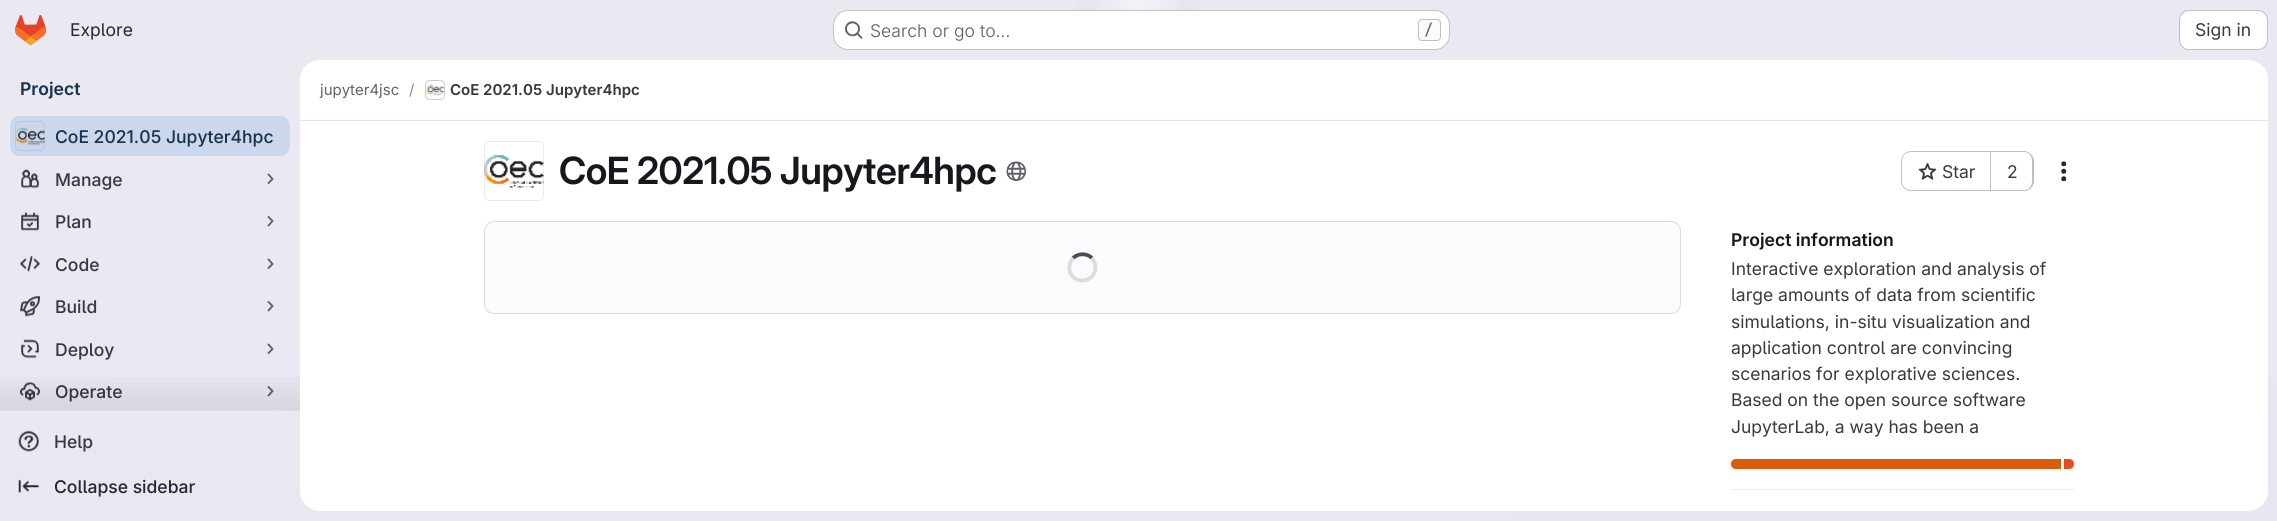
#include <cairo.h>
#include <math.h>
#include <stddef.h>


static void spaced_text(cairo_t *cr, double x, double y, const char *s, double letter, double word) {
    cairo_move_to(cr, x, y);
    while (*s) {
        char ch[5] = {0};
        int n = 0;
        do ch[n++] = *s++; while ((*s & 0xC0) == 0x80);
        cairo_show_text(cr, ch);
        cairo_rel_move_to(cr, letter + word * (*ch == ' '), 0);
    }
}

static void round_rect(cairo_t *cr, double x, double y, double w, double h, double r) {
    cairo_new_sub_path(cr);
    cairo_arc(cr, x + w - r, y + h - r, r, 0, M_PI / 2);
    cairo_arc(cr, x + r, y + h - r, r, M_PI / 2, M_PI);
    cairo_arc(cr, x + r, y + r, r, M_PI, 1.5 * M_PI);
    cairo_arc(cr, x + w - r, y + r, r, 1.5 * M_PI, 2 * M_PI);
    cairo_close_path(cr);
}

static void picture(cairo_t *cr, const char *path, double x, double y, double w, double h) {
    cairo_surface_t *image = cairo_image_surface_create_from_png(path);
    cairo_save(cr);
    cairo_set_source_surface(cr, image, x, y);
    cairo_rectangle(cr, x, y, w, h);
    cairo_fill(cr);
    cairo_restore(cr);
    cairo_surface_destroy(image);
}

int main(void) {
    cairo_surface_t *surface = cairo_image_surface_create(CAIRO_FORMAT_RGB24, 2277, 521);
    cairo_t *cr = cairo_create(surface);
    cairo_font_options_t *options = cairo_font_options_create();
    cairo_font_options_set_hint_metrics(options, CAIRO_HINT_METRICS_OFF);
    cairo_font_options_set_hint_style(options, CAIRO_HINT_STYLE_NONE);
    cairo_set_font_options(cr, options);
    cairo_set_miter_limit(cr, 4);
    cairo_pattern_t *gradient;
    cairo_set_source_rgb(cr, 1, 1, 1);
    cairo_paint(cr);
    gradient = cairo_pattern_create_linear(1218, 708, 1060, -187);
    cairo_pattern_add_color_stop_rgba(gradient, 0, 0.91, 0.902, 0.941, 1);
    cairo_pattern_add_color_stop_rgba(gradient, 0.7, 0.918, 0.914, 0.949, 1);
    cairo_set_source(cr, gradient);
    cairo_pattern_destroy(gradient);
    cairo_rectangle(cr, 0, 0, 2277, 521);
    cairo_fill(cr);
    gradient = cairo_pattern_create_radial(0, 0, 0, 0, 0, 1);
    cairo_pattern_set_matrix(gradient, &(cairo_matrix_t){1.0 / 1139, 0, 0, 1.0 / 521, -1.0 * 1139 / 1139, -1.0 * 0 / 521});
    cairo_pattern_add_color_stop_rgba(gradient, 0, 0.894, 0.886, 0.929, 1);
    cairo_pattern_add_color_stop_rgba(gradient, 0.08, 0.894, 0.886, 0.929, 0);
    cairo_set_source(cr, gradient);
    cairo_pattern_destroy(gradient);
    cairo_rectangle(cr, 1075, 0, 128, 10);
    cairo_fill(cr);
    gradient = cairo_pattern_create_radial(1139, 0, 0, 1139, 0, 1252);
    cairo_pattern_add_color_stop_rgba(gradient, 0, 1, 1, 1, 0.6);
    cairo_pattern_add_color_stop_rgba(gradient, 0.04, 1, 1, 1, 0);
    cairo_set_source(cr, gradient);
    cairo_pattern_destroy(gradient);
    cairo_rectangle(cr, 1097, 0, 84, 10);
    cairo_fill(cr);
    picture(cr, "img1.png", 15, 15, 31, 30);
    cairo_select_font_face(cr, "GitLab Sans", CAIRO_FONT_SLANT_NORMAL, CAIRO_FONT_WEIGHT_NORMAL);
    cairo_set_font_size(cr, 17.5);
    cairo_set_source_rgb(cr, 0.157, 0.153, 0.176);
    cairo_move_to(cr, 70, 36);
    cairo_show_text(cr, "Explore");
    cairo_set_source_rgb(cr, 1, 1, 1);
    round_rect(cr, 833, 10, 617, 40, 15);
    cairo_fill(cr);
    round_rect(cr, 833.5, 10.5, 616, 39, 14.5);
    cairo_set_source_rgba(cr, 0.02, 0.02, 0.024, 0.24);
    cairo_set_line_width(cr, 1);
    cairo_stroke(cr);
    picture(cr, "img2.png", 845, 21, 18, 18);
    cairo_select_font_face(cr, "GitLab Sans Light", CAIRO_FONT_SLANT_NORMAL, CAIRO_FONT_WEIGHT_NORMAL);
    cairo_set_source_rgb(cr, 0.384, 0.38, 0.408);
    cairo_move_to(cr, 870, 37);
    cairo_show_text(cr, "Search or go to…");
    cairo_set_source_rgb(cr, 0.984, 0.98, 0.992);
    round_rect(cr, 1418.5, 19.5, 22, 21, 3.5);
    cairo_fill_preserve(cr);
    cairo_set_source_rgb(cr, 0.749, 0.749, 0.765);
    cairo_stroke(cr);
    cairo_select_font_face(cr, "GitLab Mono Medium", CAIRO_FONT_SLANT_NORMAL, CAIRO_FONT_WEIGHT_NORMAL);
    cairo_set_font_size(cr, 15);
    cairo_set_source_rgb(cr, 0.384, 0.38, 0.408);
    cairo_move_to(cr, 1424, 35);
    cairo_show_text(cr, "/");
    cairo_set_source_rgb(cr, 1, 1, 1);
    round_rect(cr, 2179.5, 10.5, 88, 39, 9.5);
    cairo_fill_preserve(cr);
    cairo_set_source_rgb(cr, 0.749, 0.749, 0.765);
    cairo_stroke(cr);
    cairo_select_font_face(cr, "GitLab Sans", CAIRO_FONT_SLANT_NORMAL, CAIRO_FONT_WEIGHT_NORMAL);
    cairo_set_font_size(cr, 17.5);
    cairo_set_source_rgb(cr, 0.227, 0.22, 0.247);
    cairo_move_to(cr, 2195, 36);
    cairo_show_text(cr, "Sign in");
    cairo_select_font_face(cr, "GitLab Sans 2 SemiBold", CAIRO_FONT_SLANT_NORMAL, CAIRO_FONT_WEIGHT_NORMAL);
    cairo_set_source_rgb(cr, 0.094, 0.2, 0.306);
    cairo_move_to(cr, 20, 95);
    cairo_show_text(cr, "Project");
    cairo_set_source_rgb(cr, 0.882, 0.875, 0.925);
    cairo_rectangle(cr, 0, 410, 300, 1);
    cairo_fill(cr);
    cairo_set_source_rgb(cr, 0.792, 0.843, 0.925);
    round_rect(cr, 10, 116, 280, 40, 10);
    cairo_fill(cr);
    picture(cr, "img3.png", 15, 127, 30, 19);
    round_rect(cr, 15.5, 121.5, 29, 29, 4.5);
    cairo_set_source_rgba(cr, 0.02, 0.02, 0.024, 0.08);
    cairo_stroke(cr);
    cairo_select_font_face(cr, "GitLab Sans Medium", CAIRO_FONT_SLANT_NORMAL, CAIRO_FONT_WEIGHT_NORMAL);
    cairo_set_source_rgb(cr, 0.094, 0.2, 0.306);
    cairo_move_to(cr, 55, 143);
    cairo_show_text(cr, "CoE 2021.05 Jupyter4hpc");
    picture(cr, "img4.png", 21, 169, 18, 20);
    cairo_set_source_rgb(cr, 0.227, 0.22, 0.247);
    cairo_move_to(cr, 55, 186);
    cairo_show_text(cr, "Manage");
    cairo_new_path(cr);
    cairo_move_to(cr, 268.5, 174.5);
    cairo_line_to(cr, 272.5, 179);
    cairo_line_to(cr, 268.5, 183);
    cairo_set_source_rgb(cr, 0.384, 0.38, 0.408);
    cairo_set_line_width(cr, 1.9);
    cairo_set_line_cap(cr, CAIRO_LINE_CAP_ROUND);
    cairo_set_line_join(cr, CAIRO_LINE_JOIN_ROUND);
    cairo_stroke(cr);
    picture(cr, "img5.png", 21, 212, 18, 19);
    cairo_set_source_rgb(cr, 0.227, 0.22, 0.247);
    cairo_move_to(cr, 55, 228);
    cairo_show_text(cr, "Plan");
    cairo_new_path(cr);
    cairo_move_to(cr, 268.5, 217);
    cairo_line_to(cr, 272.5, 221);
    cairo_line_to(cr, 268.5, 225.5);
    cairo_set_source_rgb(cr, 0.384, 0.38, 0.408);
    cairo_stroke(cr);
    picture(cr, "img6.png", 20, 256, 20, 16);
    cairo_set_source_rgb(cr, 0.227, 0.22, 0.247);
    cairo_move_to(cr, 55, 271);
    cairo_show_text(cr, "Code");
    cairo_new_path(cr);
    cairo_move_to(cr, 268.5, 259.5);
    cairo_line_to(cr, 272.5, 264);
    cairo_line_to(cr, 268.5, 268);
    cairo_set_source_rgb(cr, 0.384, 0.38, 0.408);
    cairo_stroke(cr);
    picture(cr, "img7.png", 20, 296, 20, 21);
    cairo_set_source_rgb(cr, 0.227, 0.22, 0.247);
    cairo_move_to(cr, 55, 313);
    cairo_show_text(cr, "Build");
    cairo_new_path(cr);
    cairo_move_to(cr, 268.5, 302);
    cairo_line_to(cr, 272.5, 306);
    cairo_line_to(cr, 268.5, 310.5);
    cairo_set_source_rgb(cr, 0.384, 0.38, 0.408);
    cairo_stroke(cr);
    picture(cr, "img8.png", 21, 339, 18, 20);
    cairo_set_source_rgb(cr, 0.227, 0.22, 0.247);
    cairo_move_to(cr, 55, 356);
    cairo_show_text(cr, "Deploy");
    cairo_new_path(cr);
    cairo_move_to(cr, 268.5, 344.5);
    cairo_line_to(cr, 272.5, 349);
    cairo_line_to(cr, 268.5, 353);
    cairo_set_source_rgb(cr, 0.384, 0.38, 0.408);
    cairo_stroke(cr);
    picture(cr, "img9.png", 20, 382, 20, 19);
    cairo_set_source_rgb(cr, 0.227, 0.22, 0.247);
    cairo_move_to(cr, 55, 398);
    cairo_show_text(cr, "Operate");
    cairo_new_path(cr);
    cairo_move_to(cr, 268.5, 387);
    cairo_line_to(cr, 272.5, 391);
    cairo_line_to(cr, 268.5, 395.5);
    cairo_set_source_rgb(cr, 0.384, 0.38, 0.408);
    cairo_stroke(cr);
    gradient = cairo_pattern_create_linear(150, 365, 150, 410);
    cairo_pattern_add_color_stop_rgba(gradient, 0, 0.02, 0.02, 0.024, 0);
    cairo_pattern_add_color_stop_rgba(gradient, 1, 0.02, 0.02, 0.024, 0.08);
    cairo_set_source(cr, gradient);
    cairo_pattern_destroy(gradient);
    cairo_rectangle(cr, 0, 377, 300, 33);
    cairo_fill(cr);
    picture(cr, "img10.png", 18, 431, 21, 21);
    cairo_set_source_rgb(cr, 0.227, 0.22, 0.247);
    cairo_move_to(cr, 54, 448);
    cairo_show_text(cr, "Help");
    picture(cr, "img11.png", 18, 479, 21, 15);
    cairo_set_source_rgb(cr, 0.157, 0.153, 0.176);
    cairo_move_to(cr, 54, 493);
    cairo_show_text(cr, "Collapse sidebar");
    cairo_set_source_rgb(cr, 1, 1, 1);
    round_rect(cr, 300, 60, 1968, 451, 20);
    cairo_fill(cr);
    cairo_new_path(cr);
    cairo_move_to(cr, 320, 60);
    cairo_line_to(cr, 2248, 60);
    cairo_curve_to(cr, 2259, 60, 2268, 69, 2268, 80);
    cairo_line_to(cr, 2268, 121);
    cairo_line_to(cr, 300, 121);
    cairo_line_to(cr, 300, 80);
    cairo_curve_to(cr, 300, 69, 309, 60, 320, 60);
    cairo_close_path(cr);
    cairo_fill(cr);
    cairo_set_source_rgb(cr, 0.882, 0.875, 0.925);
    cairo_rectangle(cr, 300, 120, 1968, 1);
    cairo_fill(cr);
    cairo_select_font_face(cr, "GitLab Sans", CAIRO_FONT_SLANT_NORMAL, CAIRO_FONT_WEIGHT_NORMAL);
    cairo_set_font_size(cr, 15);
    cairo_set_source_rgb(cr, 0.384, 0.38, 0.408);
    cairo_move_to(cr, 320, 95);
    cairo_show_text(cr, "jupyter4jsc");
    cairo_set_source_rgb(cr, 0.537, 0.533, 0.553);
    cairo_move_to(cr, 409, 95);
    cairo_show_text(cr, "/");
    round_rect(cr, 425.5, 80.5, 19, 19, 4.5);
    cairo_set_source_rgb(cr, 0.863, 0.863, 0.871);
    cairo_set_line_width(cr, 1);
    cairo_set_line_cap(cr, CAIRO_LINE_CAP_BUTT);
    cairo_set_line_join(cr, CAIRO_LINE_JOIN_MITER);
    cairo_stroke(cr);
    picture(cr, "img12.png", 425, 84, 19, 12);
    round_rect(cr, 425.5, 80.5, 19, 19, 4.5);
    cairo_set_source_rgba(cr, 0.02, 0.02, 0.024, 0.08);
    cairo_stroke(cr);
    cairo_select_font_face(cr, "GitLab Sans 2 SemiBold", CAIRO_FONT_SLANT_NORMAL, CAIRO_FONT_WEIGHT_NORMAL);
    cairo_set_source_rgb(cr, 0.227, 0.22, 0.247);
    cairo_move_to(cr, 450, 95);
    cairo_show_text(cr, "CoE 2021.05 Jupyter4hpc");
    picture(cr, "img13.png", 484, 154, 60, 34);
    round_rect(cr, 484.5, 141.5, 59, 59, 4.5);
    cairo_set_source_rgba(cr, 0.02, 0.02, 0.024, 0.08);
    cairo_stroke(cr);
    cairo_select_font_face(cr, "GitLab Sans SemiBold", CAIRO_FONT_SLANT_NORMAL, CAIRO_FONT_WEIGHT_NORMAL);
    cairo_set_font_size(cr, 37.5);
    cairo_set_source_rgb(cr, 0.094, 0.09, 0.114);
    spaced_text(cr, 559, 184, "CoE 2021.05 Jupyter4hpc", -0.4, 0);
    picture(cr, "img14.png", 1006, 161, 21, 21);
    cairo_set_source_rgb(cr, 0.749, 0.749, 0.765);
    cairo_set_fill_rule(cr, CAIRO_FILL_RULE_EVEN_ODD);
    cairo_new_path(cr);
    cairo_move_to(cr, 1911, 151);
    cairo_line_to(cr, 1990, 151);
    cairo_line_to(cr, 1990, 191);
    cairo_line_to(cr, 1911, 191);
    cairo_curve_to(cr, 1906, 191, 1901, 187, 1901, 181);
    cairo_line_to(cr, 1901, 161);
    cairo_curve_to(cr, 1901, 156, 1906, 151, 1911, 151);
    cairo_close_path(cr);
    cairo_move_to(cr, 1911, 152);
    cairo_line_to(cr, 1990, 152);
    cairo_line_to(cr, 1990, 190);
    cairo_line_to(cr, 1911, 190);
    cairo_curve_to(cr, 1906, 190, 1902, 186, 1902, 181);
    cairo_line_to(cr, 1902, 161);
    cairo_curve_to(cr, 1902, 156, 1906, 152, 1911, 152);
    cairo_close_path(cr);
    cairo_fill(cr);
    picture(cr, "img15.png", 1918, 163, 19, 17);
    cairo_select_font_face(cr, "GitLab Sans", CAIRO_FONT_SLANT_NORMAL, CAIRO_FONT_WEIGHT_NORMAL);
    cairo_set_font_size(cr, 17.5);
    cairo_set_source_rgb(cr, 0.227, 0.22, 0.247);
    cairo_move_to(cr, 1942, 178);
    cairo_show_text(cr, "Star");
    cairo_set_source_rgb(cr, 0.749, 0.749, 0.765);
    cairo_new_path(cr);
    cairo_move_to(cr, 1991, 151);
    cairo_line_to(cr, 2024, 151);
    cairo_curve_to(cr, 2029, 151, 2034, 156, 2034, 161);
    cairo_line_to(cr, 2034, 181);
    cairo_curve_to(cr, 2034, 187, 2029, 191, 2024, 191);
    cairo_line_to(cr, 1991, 191);
    cairo_close_path(cr);
    cairo_move_to(cr, 1991, 152);
    cairo_line_to(cr, 2024, 152);
    cairo_curve_to(cr, 2029, 152, 2032, 156, 2032, 161);
    cairo_line_to(cr, 2032, 181);
    cairo_curve_to(cr, 2032, 186, 2029, 190, 2024, 190);
    cairo_line_to(cr, 1991, 190);
    cairo_close_path(cr);
    cairo_fill(cr);
    cairo_rectangle(cr, 1990, 151, 1, 40);
    cairo_fill(cr);
    cairo_set_source_rgb(cr, 0.227, 0.22, 0.247);
    cairo_move_to(cr, 2007, 178);
    cairo_show_text(cr, "2");
    picture(cr, "img16.png", 2061, 161, 6, 21);
    cairo_set_source_rgb(cr, 0.984, 0.98, 0.992);
    round_rect(cr, 484.5, 221.5, 1196, 92, 9.5);
    cairo_fill_preserve(cr);
    cairo_set_source_rgb(cr, 0.863, 0.863, 0.871);
    cairo_stroke(cr);
    cairo_new_path(cr);
    cairo_move_to(cr, 1073, 258);
    cairo_curve_to(cr, 1078.5, 253, 1086.5, 253, 1092, 258);
    cairo_set_source_rgb(cr, 0.298, 0.294, 0.318);
    cairo_set_line_width(cr, 3.8);
    cairo_stroke(cr);
    cairo_new_path(cr);
    cairo_move_to(cr, 1092, 258);
    cairo_curve_to(cr, 1094, 260.5, 1095.5, 264, 1095.5, 267.5);
    cairo_curve_to(cr, 1095.5, 283, 1072.5, 285.5, 1069.5, 270);
    cairo_curve_to(cr, 1069, 266, 1070, 261.5, 1073, 258);
    cairo_set_source_rgb(cr, 0.863, 0.863, 0.871);
    cairo_stroke(cr);
    cairo_set_source_rgb(cr, 0.925, 0.925, 0.937);
    cairo_rectangle(cr, 1731, 489, 343, 1);
    cairo_fill(cr);
    cairo_select_font_face(cr, "GitLab Sans 2 SemiBold", CAIRO_FONT_SLANT_NORMAL, CAIRO_FONT_WEIGHT_NORMAL);
    cairo_set_source_rgb(cr, 0.094, 0.09, 0.114);
    cairo_move_to(cr, 1731, 246);
    cairo_show_text(cr, "Project information");
    cairo_select_font_face(cr, "GitLab Sans", CAIRO_FONT_SLANT_NORMAL, CAIRO_FONT_WEIGHT_NORMAL);
    cairo_set_source_rgb(cr, 0.227, 0.22, 0.247);
    cairo_move_to(cr, 1731, 275);
    cairo_show_text(cr, "Interactive exploration and analysis of");
    cairo_move_to(cr, 1731, 301);
    cairo_show_text(cr, "large amounts of data from scientific");
    cairo_move_to(cr, 1731, 328);
    cairo_show_text(cr, "simulations, in-situ visualization and");
    cairo_move_to(cr, 1731, 354);
    cairo_show_text(cr, "application control are convincing");
    cairo_move_to(cr, 1731, 380);
    cairo_show_text(cr, "scenarios for explorative sciences.");
    cairo_move_to(cr, 1731, 406);
    cairo_show_text(cr, "Based on the open source software");
    cairo_move_to(cr, 1731, 433);
    cairo_show_text(cr, "JupyterLab, a way has been a");
    cairo_set_source_rgb(cr, 0.855, 0.357, 0.043);
    cairo_new_path(cr);
    cairo_move_to(cr, 1736, 459);
    cairo_line_to(cr, 2061, 459);
    cairo_line_to(cr, 2061, 469);
    cairo_line_to(cr, 1736, 469);
    cairo_curve_to(cr, 1733, 469, 1731, 467, 1731, 464);
    cairo_curve_to(cr, 1731, 461, 1733, 459, 1736, 459);
    cairo_close_path(cr);
    cairo_fill(cr);
    cairo_set_source_rgb(cr, 0.89, 0.298, 0.149);
    cairo_new_path(cr);
    cairo_move_to(cr, 2064, 459);
    cairo_line_to(cr, 2069, 459);
    cairo_curve_to(cr, 2072, 459, 2074, 461, 2074, 464);
    cairo_curve_to(cr, 2074, 467, 2072, 469, 2069, 469);
    cairo_line_to(cr, 2064, 469);
    cairo_close_path(cr);
    cairo_fill(cr);
    cairo_surface_write_to_png(surface, "page.png");
    cairo_font_options_destroy(options);
    cairo_destroy(cr);
    cairo_surface_destroy(surface);
    return 0;
}
